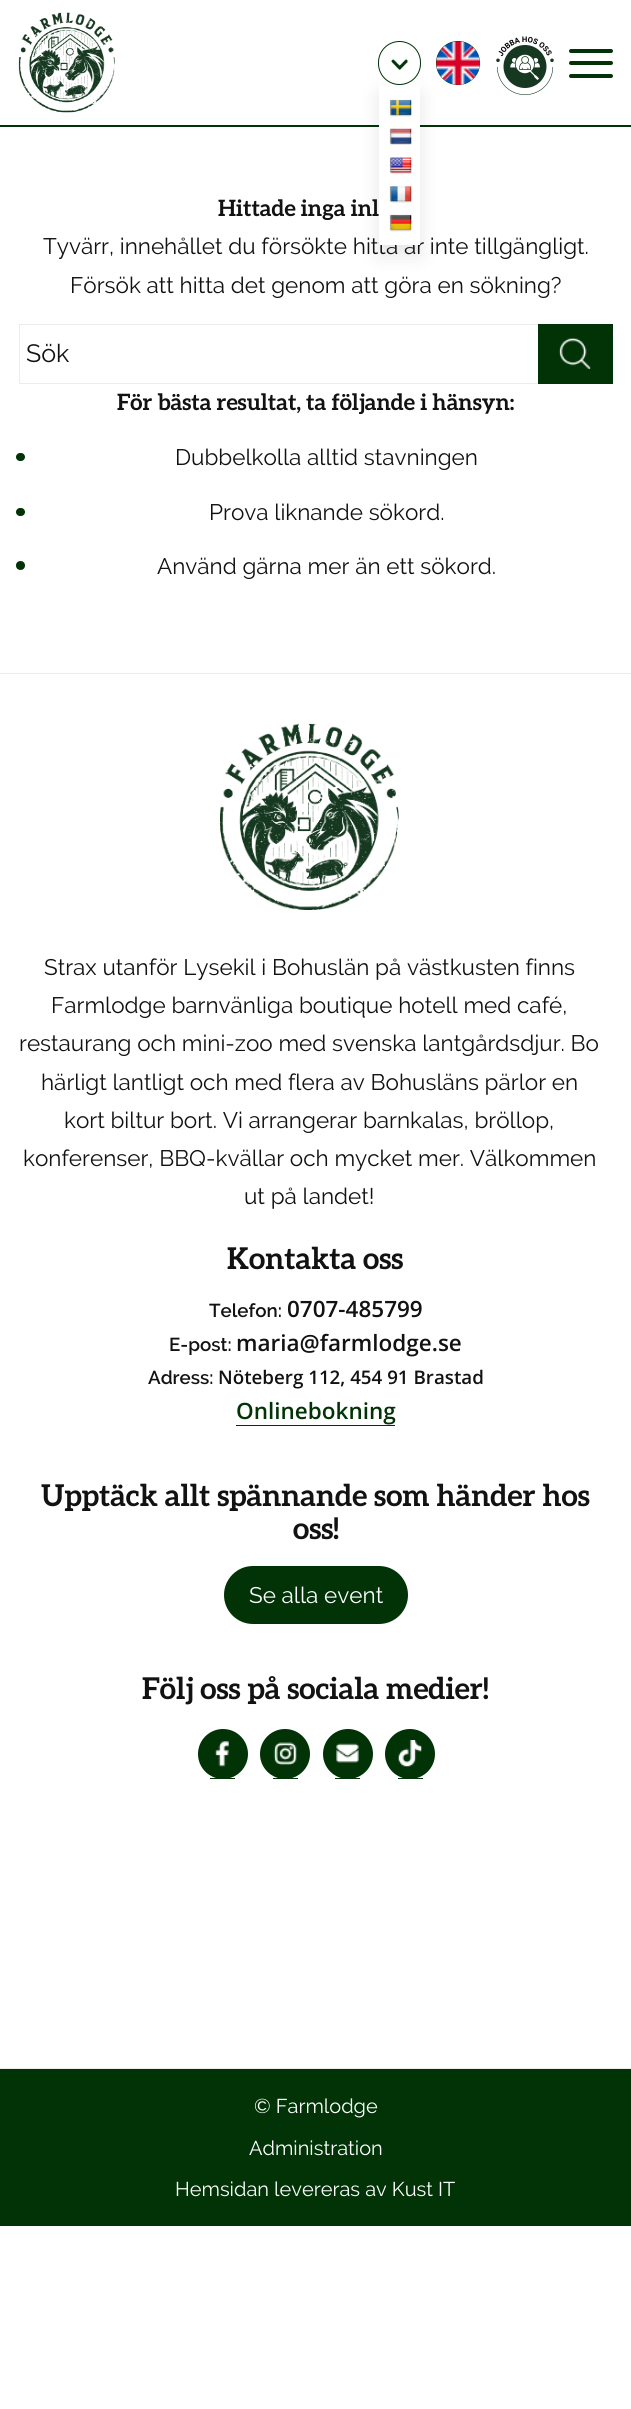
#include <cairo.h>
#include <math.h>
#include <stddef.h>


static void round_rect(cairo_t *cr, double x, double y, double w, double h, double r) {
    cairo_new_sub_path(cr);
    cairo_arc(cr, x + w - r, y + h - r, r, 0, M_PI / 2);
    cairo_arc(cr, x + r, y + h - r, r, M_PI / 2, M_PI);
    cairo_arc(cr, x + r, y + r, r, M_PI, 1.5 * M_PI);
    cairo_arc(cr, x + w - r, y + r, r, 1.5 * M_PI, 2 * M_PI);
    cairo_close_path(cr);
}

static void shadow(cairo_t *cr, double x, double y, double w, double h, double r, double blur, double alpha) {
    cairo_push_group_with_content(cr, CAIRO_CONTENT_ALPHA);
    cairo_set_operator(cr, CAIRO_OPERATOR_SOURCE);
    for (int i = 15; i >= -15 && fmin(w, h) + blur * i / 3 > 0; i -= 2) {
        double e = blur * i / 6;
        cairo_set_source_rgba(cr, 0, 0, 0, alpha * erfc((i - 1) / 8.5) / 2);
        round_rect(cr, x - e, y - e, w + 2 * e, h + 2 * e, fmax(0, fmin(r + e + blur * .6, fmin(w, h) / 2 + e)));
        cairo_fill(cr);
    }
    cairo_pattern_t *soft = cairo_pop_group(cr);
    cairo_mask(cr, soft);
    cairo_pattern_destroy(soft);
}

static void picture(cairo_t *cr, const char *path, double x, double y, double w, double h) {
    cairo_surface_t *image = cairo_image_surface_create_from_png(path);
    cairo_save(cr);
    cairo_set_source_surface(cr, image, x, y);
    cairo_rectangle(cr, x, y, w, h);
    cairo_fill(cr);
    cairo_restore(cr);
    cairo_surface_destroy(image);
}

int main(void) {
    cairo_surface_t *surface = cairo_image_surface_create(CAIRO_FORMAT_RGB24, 631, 2409);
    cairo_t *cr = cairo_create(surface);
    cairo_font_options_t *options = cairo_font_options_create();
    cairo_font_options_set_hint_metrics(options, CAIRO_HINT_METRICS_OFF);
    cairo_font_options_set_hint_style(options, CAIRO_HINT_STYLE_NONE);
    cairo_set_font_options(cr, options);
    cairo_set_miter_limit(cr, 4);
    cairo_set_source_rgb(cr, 1, 1, 1);
    cairo_paint(cr);
    cairo_set_source_rgb(cr, 0.004, 0.2, 0.024);
    cairo_rectangle(cr, 0, 125, 631, 2);
    cairo_fill(cr);
    picture(cr, "img1.png", 18, 12, 97, 101);
    picture(cr, "img2.png", 391, 59, 17, 11);
    round_rect(cr, 378.5, 41.5, 42, 43, 21);
    cairo_set_line_width(cr, 1);
    cairo_stroke(cr);
    cairo_set_source_rgb(cr, 0, 0, 0);
    shadow(cr, 379, 95, 41, 160, 0, 9.5, 0.1);
    cairo_select_font_face(cr, "Raleway", CAIRO_FONT_SLANT_NORMAL, CAIRO_FONT_WEIGHT_NORMAL);
    cairo_set_font_size(cr, 22.5);
    cairo_set_source_rgb(cr, 0.071, 0.071, 0.071);
    cairo_move_to(cr, 43, 254);
    cairo_show_text(cr, "Tyvärr, innehållet du försökte hitta är inte tillgängligt.");
    cairo_set_source_rgb(cr, 1, 1, 1);
    cairo_rectangle(cr, 379, 85, 41, 160);
    cairo_fill(cr);
    picture(cr, "img3.png", 389, 99, 23, 18);
    picture(cr, "img4.png", 389, 128, 23, 17);
    picture(cr, "img5.png", 389, 157, 23, 17);
    picture(cr, "img6.png", 389, 186, 23, 17);
    picture(cr, "img7.png", 389, 214, 23, 18);
    cairo_set_source_rgb(cr, 0.004, 0.2, 0.024);
    cairo_arc(cr, 458, 63, 22, 0, 2 * M_PI);
    cairo_fill(cr);
    picture(cr, "img8.png", 436, 41, 45, 44);
    picture(cr, "img9.png", 496, 36, 58, 59);
    round_rect(cr, 569, 61, 44, 4, 2);
    cairo_fill(cr);
    round_rect(cr, 569, 49, 44, 4, 2);
    cairo_fill(cr);
    round_rect(cr, 569, 74, 44, 4, 2);
    cairo_fill(cr);
    cairo_select_font_face(cr, "Aleo", CAIRO_FONT_SLANT_NORMAL, CAIRO_FONT_WEIGHT_BOLD);
    cairo_set_source_rgb(cr, 0.071, 0.071, 0.071);
    cairo_move_to(cr, 218, 216);
    cairo_show_text(cr, "Hittade inga inl");
    cairo_select_font_face(cr, "Raleway", CAIRO_FONT_SLANT_NORMAL, CAIRO_FONT_WEIGHT_NORMAL);
    cairo_move_to(cr, 70, 293);
    cairo_show_text(cr, "Försök att hitta det genom att göra en sökning?");
    cairo_rectangle(cr, 19.5, 324.5, 593, 59);
    cairo_set_source_rgb(cr, 0.922, 0.922, 0.922);
    cairo_stroke(cr);
    cairo_set_font_size(cr, 25);
    cairo_set_source_rgb(cr, 0.071, 0.071, 0.071);
    cairo_move_to(cr, 26, 362);
    cairo_show_text(cr, "Sök");
    cairo_set_source_rgb(cr, 0.004, 0.2, 0.024);
    cairo_rectangle(cr, 538, 324, 75, 60);
    cairo_fill(cr);
    picture(cr, "img10.png", 559, 337, 32, 33);
    cairo_select_font_face(cr, "Aleo", CAIRO_FONT_SLANT_NORMAL, CAIRO_FONT_WEIGHT_BOLD);
    cairo_set_font_size(cr, 22.5);
    cairo_set_source_rgb(cr, 0.071, 0.071, 0.071);
    cairo_move_to(cr, 117, 410);
    cairo_show_text(cr, "För bästa resultat, ta följande i hänsyn:");
    cairo_set_source_rgb(cr, 0.004, 0.2, 0.024);
    round_rect(cr, 16, 453, 9, 8, 4);
    cairo_fill(cr);
    cairo_select_font_face(cr, "Raleway", CAIRO_FONT_SLANT_NORMAL, CAIRO_FONT_WEIGHT_NORMAL);
    cairo_set_source_rgb(cr, 0.071, 0.071, 0.071);
    cairo_move_to(cr, 175, 465);
    cairo_show_text(cr, "Dubbelkolla alltid stavningen");
    cairo_set_source_rgb(cr, 0.004, 0.2, 0.024);
    round_rect(cr, 16, 508, 9, 8, 4);
    cairo_fill(cr);
    cairo_set_source_rgb(cr, 0.071, 0.071, 0.071);
    cairo_move_to(cr, 209, 520);
    cairo_show_text(cr, "Prova liknande sökord.");
    cairo_set_source_rgb(cr, 0.004, 0.2, 0.024);
    cairo_new_path(cr);
    cairo_arc(cr, 20.5, 565.5, 4.5, 0, 2 * M_PI);
    cairo_fill(cr);
    cairo_set_source_rgb(cr, 0.071, 0.071, 0.071);
    cairo_move_to(cr, 157, 574);
    cairo_show_text(cr, "Använd gärna mer än ett sökord.");
    cairo_set_source_rgb(cr, 0.922, 0.922, 0.922);
    cairo_rectangle(cr, 0, 673, 631, 1);
    cairo_fill(cr);
    picture(cr, "img11.png", 220, 723, 179, 187);
    cairo_set_source_rgb(cr, 0.071, 0.071, 0.071);
    cairo_move_to(cr, 44, 975);
    cairo_show_text(cr, "Strax utanför Lysekil i Bohuslän på västkusten finns");
    cairo_move_to(cr, 51, 1013);
    cairo_show_text(cr, "Farmlodge barnvänliga boutique hotell med café,");
    cairo_move_to(cr, 19, 1051);
    cairo_show_text(cr, "restaurang och mini-zoo med svenska lantgårdsdjur. Bo");
    cairo_move_to(cr, 41, 1090);
    cairo_show_text(cr, "härligt lantligt och med flera av Bohusläns pärlor en");
    cairo_move_to(cr, 64, 1128);
    cairo_show_text(cr, "kort biltur bort. Vi arrangerar barnkalas, bröllop,");
    cairo_move_to(cr, 23, 1166);
    cairo_show_text(cr, "konferenser, BBQ-kvällar och mycket mer. Välkommen");
    cairo_move_to(cr, 244, 1204);
    cairo_show_text(cr, "ut på landet!");
    cairo_select_font_face(cr, "Aleo", CAIRO_FONT_SLANT_NORMAL, CAIRO_FONT_WEIGHT_BOLD);
    cairo_set_font_size(cr, 30);
    cairo_move_to(cr, 227, 1269);
    cairo_show_text(cr, "Kontakta oss");
    cairo_select_font_face(cr, "Raleway SemiBold", CAIRO_FONT_SLANT_NORMAL, CAIRO_FONT_WEIGHT_NORMAL);
    cairo_set_font_size(cr, 18.75);
    cairo_move_to(cr, 209, 1317);
    cairo_show_text(cr, "Telefon:");
    cairo_select_font_face(cr, "Open Sans SemiBold", CAIRO_FONT_SLANT_NORMAL, CAIRO_FONT_WEIGHT_NORMAL);
    cairo_set_font_size(cr, 22.5);
    cairo_move_to(cr, 287, 1317);
    cairo_show_text(cr, "0707-485799");
    cairo_select_font_face(cr, "Raleway SemiBold", CAIRO_FONT_SLANT_NORMAL, CAIRO_FONT_WEIGHT_NORMAL);
    cairo_set_font_size(cr, 18.75);
    cairo_move_to(cr, 169, 1351);
    cairo_show_text(cr, "E-post:");
    cairo_select_font_face(cr, "Open Sans SemiBold", CAIRO_FONT_SLANT_NORMAL, CAIRO_FONT_WEIGHT_NORMAL);
    cairo_set_font_size(cr, 22.5);
    cairo_move_to(cr, 236, 1351);
    cairo_show_text(cr, "maria@farmlodge.se");
    cairo_select_font_face(cr, "Raleway SemiBold", CAIRO_FONT_SLANT_NORMAL, CAIRO_FONT_WEIGHT_NORMAL);
    cairo_set_font_size(cr, 18.75);
    cairo_move_to(cr, 148, 1384);
    cairo_show_text(cr, "Adress:");
    cairo_select_font_face(cr, "Open Sans SemiBold", CAIRO_FONT_SLANT_NORMAL, CAIRO_FONT_WEIGHT_NORMAL);
    cairo_move_to(cr, 218, 1384);
    cairo_show_text(cr, "Nöteberg 112, 454 91 Brastad");
    cairo_set_font_size(cr, 22.5);
    cairo_set_source_rgb(cr, 0.004, 0.2, 0.024);
    cairo_move_to(cr, 236, 1419);
    cairo_show_text(cr, "Onlinebokning");
    cairo_rectangle(cr, 236, 1425, 159, 1);
    cairo_fill(cr);
    cairo_select_font_face(cr, "Aleo", CAIRO_FONT_SLANT_NORMAL, CAIRO_FONT_WEIGHT_BOLD);
    cairo_set_font_size(cr, 30);
    cairo_set_source_rgb(cr, 0.071, 0.071, 0.071);
    cairo_move_to(cr, 41, 1506);
    cairo_show_text(cr, "Upptäck allt spännande som händer hos");
    cairo_move_to(cr, 293, 1539);
    cairo_show_text(cr, "oss!");
    cairo_set_source_rgb(cr, 0.004, 0.2, 0.024);
    round_rect(cr, 224, 1566, 184, 58, 29);
    cairo_fill(cr);
    cairo_select_font_face(cr, "Raleway", CAIRO_FONT_SLANT_NORMAL, CAIRO_FONT_WEIGHT_NORMAL);
    cairo_set_font_size(cr, 22.5);
    cairo_set_source_rgb(cr, 1, 1, 1);
    cairo_move_to(cr, 249, 1603);
    cairo_show_text(cr, "Se alla event");
    cairo_select_font_face(cr, "Aleo", CAIRO_FONT_SLANT_NORMAL, CAIRO_FONT_WEIGHT_BOLD);
    cairo_set_font_size(cr, 30);
    cairo_set_source_rgb(cr, 0.071, 0.071, 0.071);
    cairo_move_to(cr, 142, 1699);
    cairo_show_text(cr, "Följ oss på sociala medier!");
    cairo_set_source_rgb(cr, 0.004, 0.2, 0.024);
    cairo_new_path(cr);
    cairo_arc(cr, 223, 1754, 25, 0, 2 * M_PI);
    cairo_fill(cr);
    picture(cr, "img12.png", 215, 1741, 14, 26);
    cairo_rectangle(cr, 210, 1778, 25, 1);
    cairo_fill(cr);
    cairo_arc(cr, 285, 1754, 25, 0, 2 * M_PI);
    cairo_fill(cr);
    picture(cr, "img13.png", 273, 1742, 24, 23);
    cairo_rectangle(cr, 273, 1778, 25, 1);
    cairo_fill(cr);
    cairo_arc(cr, 348, 1754, 25, 0, 2 * M_PI);
    cairo_fill(cr);
    picture(cr, "img14.png", 336, 1743, 23, 20);
    cairo_rectangle(cr, 335, 1778, 25, 1);
    cairo_fill(cr);
    cairo_arc(cr, 410, 1754, 25, 0, 2 * M_PI);
    cairo_fill(cr);
    picture(cr, "img15.png", 398, 1740, 24, 27);
    cairo_rectangle(cr, 398, 1778, 25, 1);
    cairo_fill(cr);
    cairo_rectangle(cr, 0, 2069, 631, 157);
    cairo_fill(cr);
    cairo_set_source_rgb(cr, 0.922, 0.922, 0.922);
    cairo_rectangle(cr, 0, 2068, 631, 1);
    cairo_fill(cr);
    cairo_select_font_face(cr, "Raleway", CAIRO_FONT_SLANT_NORMAL, CAIRO_FONT_WEIGHT_NORMAL);
    cairo_set_font_size(cr, 20);
    cairo_set_source_rgb(cr, 1, 1, 1);
    cairo_move_to(cr, 254, 2113);
    cairo_show_text(cr, "© Farmlodge");
    cairo_move_to(cr, 249, 2155);
    cairo_show_text(cr, "Administration");
    cairo_move_to(cr, 175, 2196);
    cairo_show_text(cr, "Hemsidan levereras av Kust IT");
    cairo_surface_write_to_png(surface, "page.png");
    cairo_font_options_destroy(options);
    cairo_destroy(cr);
    cairo_surface_destroy(surface);
    return 0;
}
